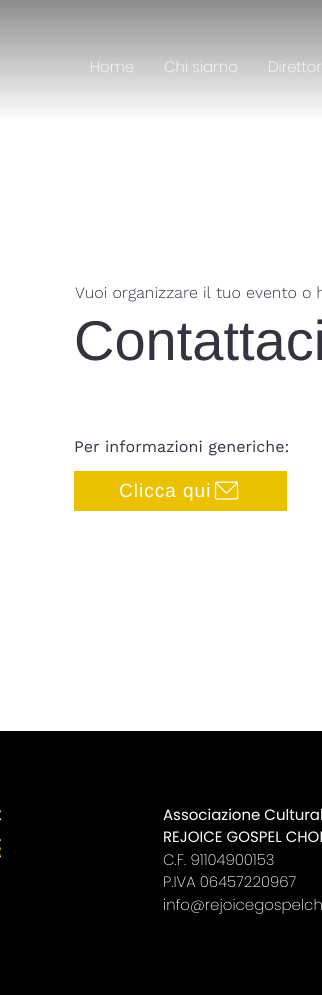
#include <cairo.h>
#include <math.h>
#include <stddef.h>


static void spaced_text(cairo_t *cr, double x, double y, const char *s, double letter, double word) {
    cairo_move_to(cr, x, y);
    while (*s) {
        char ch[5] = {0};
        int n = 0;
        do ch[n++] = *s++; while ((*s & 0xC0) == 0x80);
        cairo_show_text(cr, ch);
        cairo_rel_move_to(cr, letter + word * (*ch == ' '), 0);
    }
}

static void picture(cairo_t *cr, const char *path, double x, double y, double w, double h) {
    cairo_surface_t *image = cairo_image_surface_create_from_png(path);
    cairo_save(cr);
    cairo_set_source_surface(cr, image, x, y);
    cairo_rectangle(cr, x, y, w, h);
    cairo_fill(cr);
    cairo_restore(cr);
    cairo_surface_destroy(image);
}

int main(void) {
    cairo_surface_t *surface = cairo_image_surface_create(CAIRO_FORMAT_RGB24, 322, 995);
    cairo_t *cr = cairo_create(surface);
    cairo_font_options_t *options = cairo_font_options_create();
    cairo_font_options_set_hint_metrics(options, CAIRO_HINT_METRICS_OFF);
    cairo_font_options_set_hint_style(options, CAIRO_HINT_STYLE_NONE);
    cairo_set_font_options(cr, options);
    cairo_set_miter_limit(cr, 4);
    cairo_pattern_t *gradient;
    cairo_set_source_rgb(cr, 1, 1, 1);
    cairo_paint(cr);
    gradient = cairo_pattern_create_linear(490, 0, 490, 121);
    cairo_pattern_add_color_stop_rgba(gradient, 0.02, 0.561, 0.561, 0.561, 1);
    cairo_pattern_add_color_stop_rgba(gradient, 1, 1, 1, 1, 1);
    cairo_set_source(cr, gradient);
    cairo_pattern_destroy(gradient);
    cairo_rectangle(cr, 0, 0, 322, 118);
    cairo_fill(cr);
    cairo_select_font_face(cr, "Poppins ExtraLight", CAIRO_FONT_SLANT_NORMAL, CAIRO_FONT_WEIGHT_NORMAL);
    cairo_set_font_size(cr, 15);
    cairo_set_source_rgb(cr, 1, 1, 1);
    cairo_move_to(cr, 90, 72);
    cairo_show_text(cr, "Home");
    cairo_move_to(cr, 164, 72);
    cairo_show_text(cr, "Chi siamo");
    cairo_move_to(cr, 268, 72);
    cairo_show_text(cr, "Direttor");
    cairo_set_source_rgb(cr, 0.886, 0.882, 0.863);
    cairo_rectangle(cr, 0, 90, 1, 1);
    cairo_fill(cr);
    cairo_select_font_face(cr, "Work Sans Light", CAIRO_FONT_SLANT_NORMAL, CAIRO_FONT_WEIGHT_NORMAL);
    cairo_set_font_size(cr, 16);
    cairo_set_source_rgb(cr, 0.2, 0.204, 0.247);
    cairo_move_to(cr, 75, 298);
    cairo_show_text(cr, "Vuoi organizzare il tuo evento o h");
    cairo_select_font_face(cr, "Liberation Sans", CAIRO_FONT_SLANT_NORMAL, CAIRO_FONT_WEIGHT_NORMAL);
    cairo_set_font_size(cr, 56);
    cairo_move_to(cr, 74, 360);
    cairo_show_text(cr, "Contattaci");
    cairo_select_font_face(cr, "Work Sans", CAIRO_FONT_SLANT_NORMAL, CAIRO_FONT_WEIGHT_NORMAL);
    cairo_set_font_size(cr, 16);
    cairo_move_to(cr, 74, 452);
    cairo_show_text(cr, "Per informazioni generiche:");
    cairo_set_source_rgb(cr, 0.918, 0.757, 0);
    cairo_rectangle(cr, 74, 471, 213, 40);
    cairo_fill(cr);
    cairo_select_font_face(cr, "Liberation Sans", CAIRO_FONT_SLANT_NORMAL, CAIRO_FONT_WEIGHT_NORMAL);
    cairo_set_font_size(cr, 19);
    cairo_set_source_rgb(cr, 1, 1, 1);
    spaced_text(cr, 119, 497, "Clicca qui", 1, 0);
    picture(cr, "img1.png", 214, 481, 25, 19);
    cairo_set_source_rgb(cr, 0, 0, 0);
    cairo_rectangle(cr, 0, 731, 322, 264);
    cairo_fill(cr);
    picture(cr, "img2.png", 0, 810, 2, 48);
    cairo_select_font_face(cr, "Poppins", CAIRO_FONT_SLANT_NORMAL, CAIRO_FONT_WEIGHT_NORMAL);
    cairo_set_font_size(cr, 15);
    cairo_set_source_rgb(cr, 1, 1, 1);
    cairo_move_to(cr, 163, 820);
    cairo_show_text(cr, "Associazione Cultural");
    cairo_move_to(cr, 163, 842);
    cairo_show_text(cr, "REJOICE GOSPEL CHOI");
    cairo_select_font_face(cr, "Poppins ExtraLight", CAIRO_FONT_SLANT_NORMAL, CAIRO_FONT_WEIGHT_NORMAL);
    cairo_move_to(cr, 163, 865);
    cairo_show_text(cr, "C.F. 91104900153");
    cairo_move_to(cr, 163, 887);
    cairo_show_text(cr, "P.IVA 06457220967");
    cairo_move_to(cr, 163, 910);
    cairo_show_text(cr, "info@rejoicegospelch");
    cairo_surface_write_to_png(surface, "page.png");
    cairo_font_options_destroy(options);
    cairo_destroy(cr);
    cairo_surface_destroy(surface);
    return 0;
}
